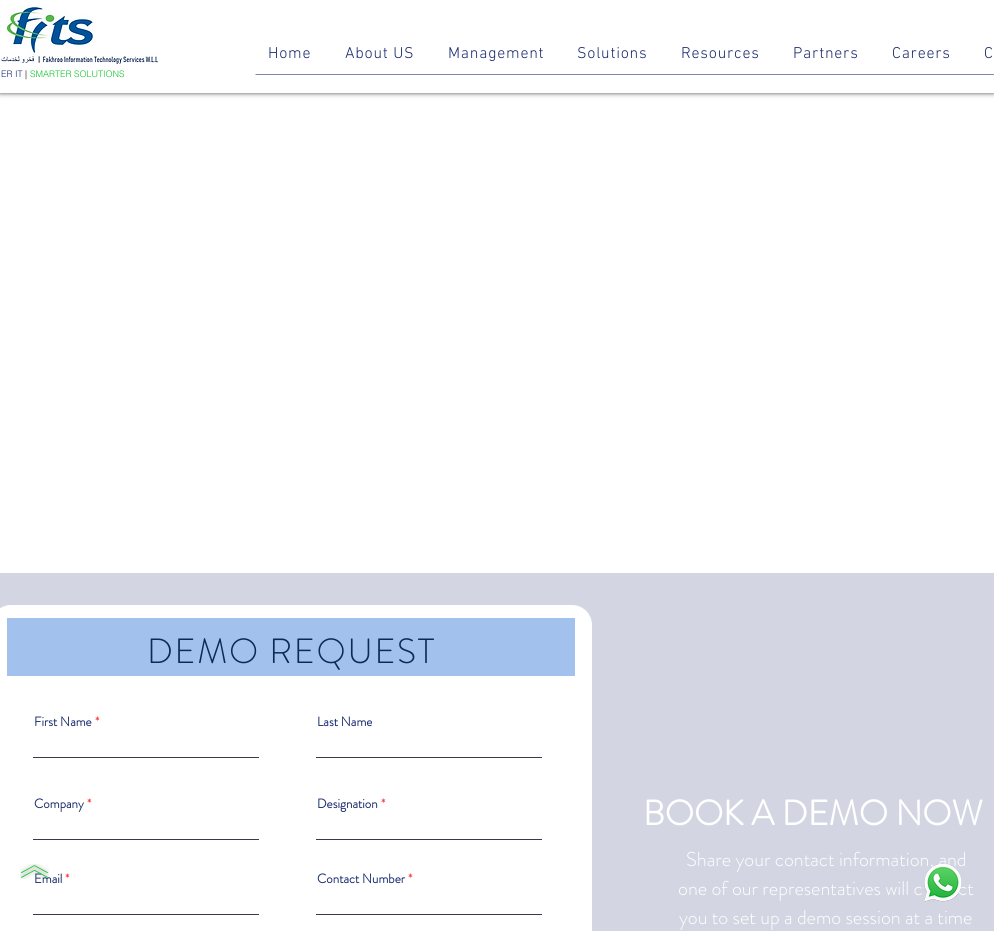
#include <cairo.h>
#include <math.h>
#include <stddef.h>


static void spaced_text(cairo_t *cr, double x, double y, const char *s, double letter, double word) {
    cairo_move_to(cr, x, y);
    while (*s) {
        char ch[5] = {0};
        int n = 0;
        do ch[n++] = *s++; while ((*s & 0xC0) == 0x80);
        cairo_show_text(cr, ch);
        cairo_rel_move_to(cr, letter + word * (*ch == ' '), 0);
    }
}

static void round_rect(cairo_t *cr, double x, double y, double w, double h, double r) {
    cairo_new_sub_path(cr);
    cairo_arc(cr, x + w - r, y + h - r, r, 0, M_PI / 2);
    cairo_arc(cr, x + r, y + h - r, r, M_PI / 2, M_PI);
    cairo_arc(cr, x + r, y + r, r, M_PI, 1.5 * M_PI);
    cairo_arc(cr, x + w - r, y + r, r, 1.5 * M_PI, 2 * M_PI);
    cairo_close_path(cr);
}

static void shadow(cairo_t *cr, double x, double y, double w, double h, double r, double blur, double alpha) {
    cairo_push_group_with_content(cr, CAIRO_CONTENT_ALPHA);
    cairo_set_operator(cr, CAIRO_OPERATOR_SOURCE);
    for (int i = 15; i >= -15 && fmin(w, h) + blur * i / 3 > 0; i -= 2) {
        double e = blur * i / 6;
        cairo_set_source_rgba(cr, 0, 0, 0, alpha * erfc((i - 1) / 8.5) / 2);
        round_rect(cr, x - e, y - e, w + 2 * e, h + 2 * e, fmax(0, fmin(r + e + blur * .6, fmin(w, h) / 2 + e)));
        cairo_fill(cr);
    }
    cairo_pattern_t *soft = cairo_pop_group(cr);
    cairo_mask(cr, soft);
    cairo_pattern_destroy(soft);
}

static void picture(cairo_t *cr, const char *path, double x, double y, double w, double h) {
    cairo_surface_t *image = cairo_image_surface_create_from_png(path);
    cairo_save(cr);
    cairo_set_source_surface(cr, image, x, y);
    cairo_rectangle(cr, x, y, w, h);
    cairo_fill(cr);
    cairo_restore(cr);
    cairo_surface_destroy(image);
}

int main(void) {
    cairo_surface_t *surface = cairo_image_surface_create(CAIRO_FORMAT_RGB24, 994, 931);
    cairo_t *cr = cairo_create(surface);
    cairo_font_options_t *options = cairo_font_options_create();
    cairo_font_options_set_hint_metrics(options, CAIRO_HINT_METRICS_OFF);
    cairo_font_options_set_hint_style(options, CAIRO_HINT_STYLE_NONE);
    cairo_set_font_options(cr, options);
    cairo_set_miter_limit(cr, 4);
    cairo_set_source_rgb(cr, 1, 1, 1);
    cairo_paint(cr);
    cairo_set_source_rgb(cr, 0, 0, 0);
    shadow(cr, 0, 0, 994, 93, 0, 2.5, 0.7);
    cairo_set_source_rgb(cr, 1, 1, 1);
    cairo_rectangle(cr, 0, 0, 994, 93);
    cairo_fill(cr);
    picture(cr, "img1.png", 1, 5, 157, 59);
    cairo_set_source_rgb(cr, 0.498, 0.533, 0.678);
    cairo_new_path(cr);
    cairo_move_to(cr, 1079, 75);
    cairo_line_to(cr, 255, 75);
    cairo_line_to(cr, 256, 74);
    cairo_line_to(cr, 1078, 74);
    cairo_close_path(cr);
    cairo_fill(cr);
    cairo_select_font_face(cr, "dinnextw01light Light", CAIRO_FONT_SLANT_NORMAL, CAIRO_FONT_WEIGHT_NORMAL);
    cairo_set_font_size(cr, 16);
    cairo_set_source_rgb(cr, 0.102, 0.169, 0.427);
    spaced_text(cr, 268, 58, "Home", 0.75, 0);
    spaced_text(cr, 345, 58, "About US", 0.75, 0);
    spaced_text(cr, 448, 58, "Management", 0.75, 0);
    spaced_text(cr, 577, 58, "Solutions", 0.75, 0);
    spaced_text(cr, 681, 58, "Resources", 0.75, 0);
    spaced_text(cr, 793, 58, "Partners", 0.75, 0);
    spaced_text(cr, 892, 58, "Careers", 0.75, 0);
    spaced_text(cr, 984, 58, "C", 0.75, 0);
    cairo_select_font_face(cr, "helvetica Light", CAIRO_FONT_SLANT_NORMAL, CAIRO_FONT_WEIGHT_NORMAL);
    cairo_set_font_size(cr, 9);
    cairo_move_to(cr, 1, 77);
    cairo_show_text(cr, "ER IT");
    cairo_set_source_rgb(cr, 0, 0, 0);
    cairo_move_to(cr, 25, 77);
    cairo_show_text(cr, "|");
    cairo_set_source_rgb(cr, 0.078, 0.769, 0.18);
    cairo_move_to(cr, 30, 77);
    cairo_show_text(cr, "SMARTER SOLUTIONS");
    cairo_set_source_rgb(cr, 0.827, 0.839, 0.886);
    cairo_rectangle(cr, 0, 573, 994, 358);
    cairo_fill(cr);
    cairo_set_source_rgb(cr, 1, 1, 1);
    round_rect(cr, -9, 605, 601, 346, 20);
    cairo_fill(cr);
    cairo_set_source_rgb(cr, 0.635, 0.757, 0.922);
    cairo_rectangle(cr, 7, 618, 568, 58);
    cairo_fill(cr);
    cairo_select_font_face(cr, "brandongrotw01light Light", CAIRO_FONT_SLANT_NORMAL, CAIRO_FONT_WEIGHT_NORMAL);
    cairo_set_font_size(cr, 35);
    cairo_set_source_rgb(cr, 0.047, 0.165, 0.329);
    spaced_text(cr, 147, 663, "DEMO REQUEST", 1.75, 0);
    cairo_select_font_face(cr, "brandongrotw01light", CAIRO_FONT_SLANT_NORMAL, CAIRO_FONT_WEIGHT_BOLD);
    cairo_set_font_size(cr, 13);
    cairo_set_source_rgb(cr, 0.102, 0.169, 0.427);
    cairo_move_to(cr, 34, 726);
    cairo_show_text(cr, "First Name");
    cairo_set_source_rgb(cr, 1, 0.251, 0.251);
    cairo_move_to(cr, 95, 726);
    cairo_show_text(cr, "*");
    cairo_set_source_rgb(cr, 0.216, 0.231, 0.302);
    cairo_rectangle(cr, 33, 757, 226, 1);
    cairo_fill(cr);
    cairo_set_source_rgb(cr, 0.102, 0.169, 0.427);
    cairo_move_to(cr, 317, 726);
    cairo_show_text(cr, "Last Name");
    cairo_set_source_rgb(cr, 0.216, 0.231, 0.302);
    cairo_rectangle(cr, 316, 757, 226, 1);
    cairo_fill(cr);
    cairo_set_source_rgb(cr, 0.102, 0.169, 0.427);
    cairo_move_to(cr, 34, 808);
    cairo_show_text(cr, "Company");
    cairo_set_source_rgb(cr, 1, 0.251, 0.251);
    cairo_move_to(cr, 87, 808);
    cairo_show_text(cr, "*");
    cairo_set_source_rgb(cr, 0.216, 0.231, 0.302);
    cairo_rectangle(cr, 33, 839, 226, 1);
    cairo_fill(cr);
    cairo_set_source_rgb(cr, 0.102, 0.169, 0.427);
    cairo_move_to(cr, 317, 808);
    cairo_show_text(cr, "Designation");
    cairo_set_source_rgb(cr, 1, 0.251, 0.251);
    cairo_move_to(cr, 381, 808);
    cairo_show_text(cr, "*");
    cairo_set_source_rgb(cr, 0.216, 0.231, 0.302);
    cairo_rectangle(cr, 316, 839, 226, 1);
    cairo_fill(cr);
    cairo_set_source_rgb(cr, 0.102, 0.169, 0.427);
    cairo_move_to(cr, 34, 883);
    cairo_show_text(cr, "Email");
    cairo_set_source_rgb(cr, 1, 0.251, 0.251);
    cairo_move_to(cr, 65, 883);
    cairo_show_text(cr, "*");
    cairo_set_source_rgb(cr, 0.216, 0.231, 0.302);
    cairo_rectangle(cr, 33, 914, 226, 1);
    cairo_fill(cr);
    cairo_set_source_rgb(cr, 0.102, 0.169, 0.427);
    cairo_move_to(cr, 317, 883);
    cairo_show_text(cr, "Contact Number");
    cairo_set_source_rgb(cr, 1, 0.251, 0.251);
    cairo_move_to(cr, 408, 883);
    cairo_show_text(cr, "*");
    cairo_set_source_rgb(cr, 0.216, 0.231, 0.302);
    cairo_rectangle(cr, 316, 914, 226, 1);
    cairo_fill(cr);
    cairo_set_font_size(cr, 35);
    cairo_set_source_rgb(cr, 1, 1, 1);
    cairo_move_to(cr, 643, 825);
    cairo_show_text(cr, "BOOK A DEMO NOW");
    cairo_select_font_face(cr, "brandongrotw01light Light", CAIRO_FONT_SLANT_NORMAL, CAIRO_FONT_WEIGHT_NORMAL);
    cairo_set_font_size(cr, 20);
    cairo_move_to(cr, 686, 866);
    cairo_show_text(cr, "Share your contact information, and");
    cairo_move_to(cr, 678, 895);
    cairo_show_text(cr, "one of our representatives will c");
    cairo_move_to(cr, 958, 895);
    cairo_show_text(cr, "ct");
    cairo_move_to(cr, 679, 924);
    cairo_show_text(cr, "you to set up a demo session at a time");
    picture(cr, "img2.png", 20, 864, 29, 15);
    picture(cr, "img3.png", 924, 863, 38, 39);
    cairo_surface_write_to_png(surface, "page.png");
    cairo_font_options_destroy(options);
    cairo_destroy(cr);
    cairo_surface_destroy(surface);
    return 0;
}
